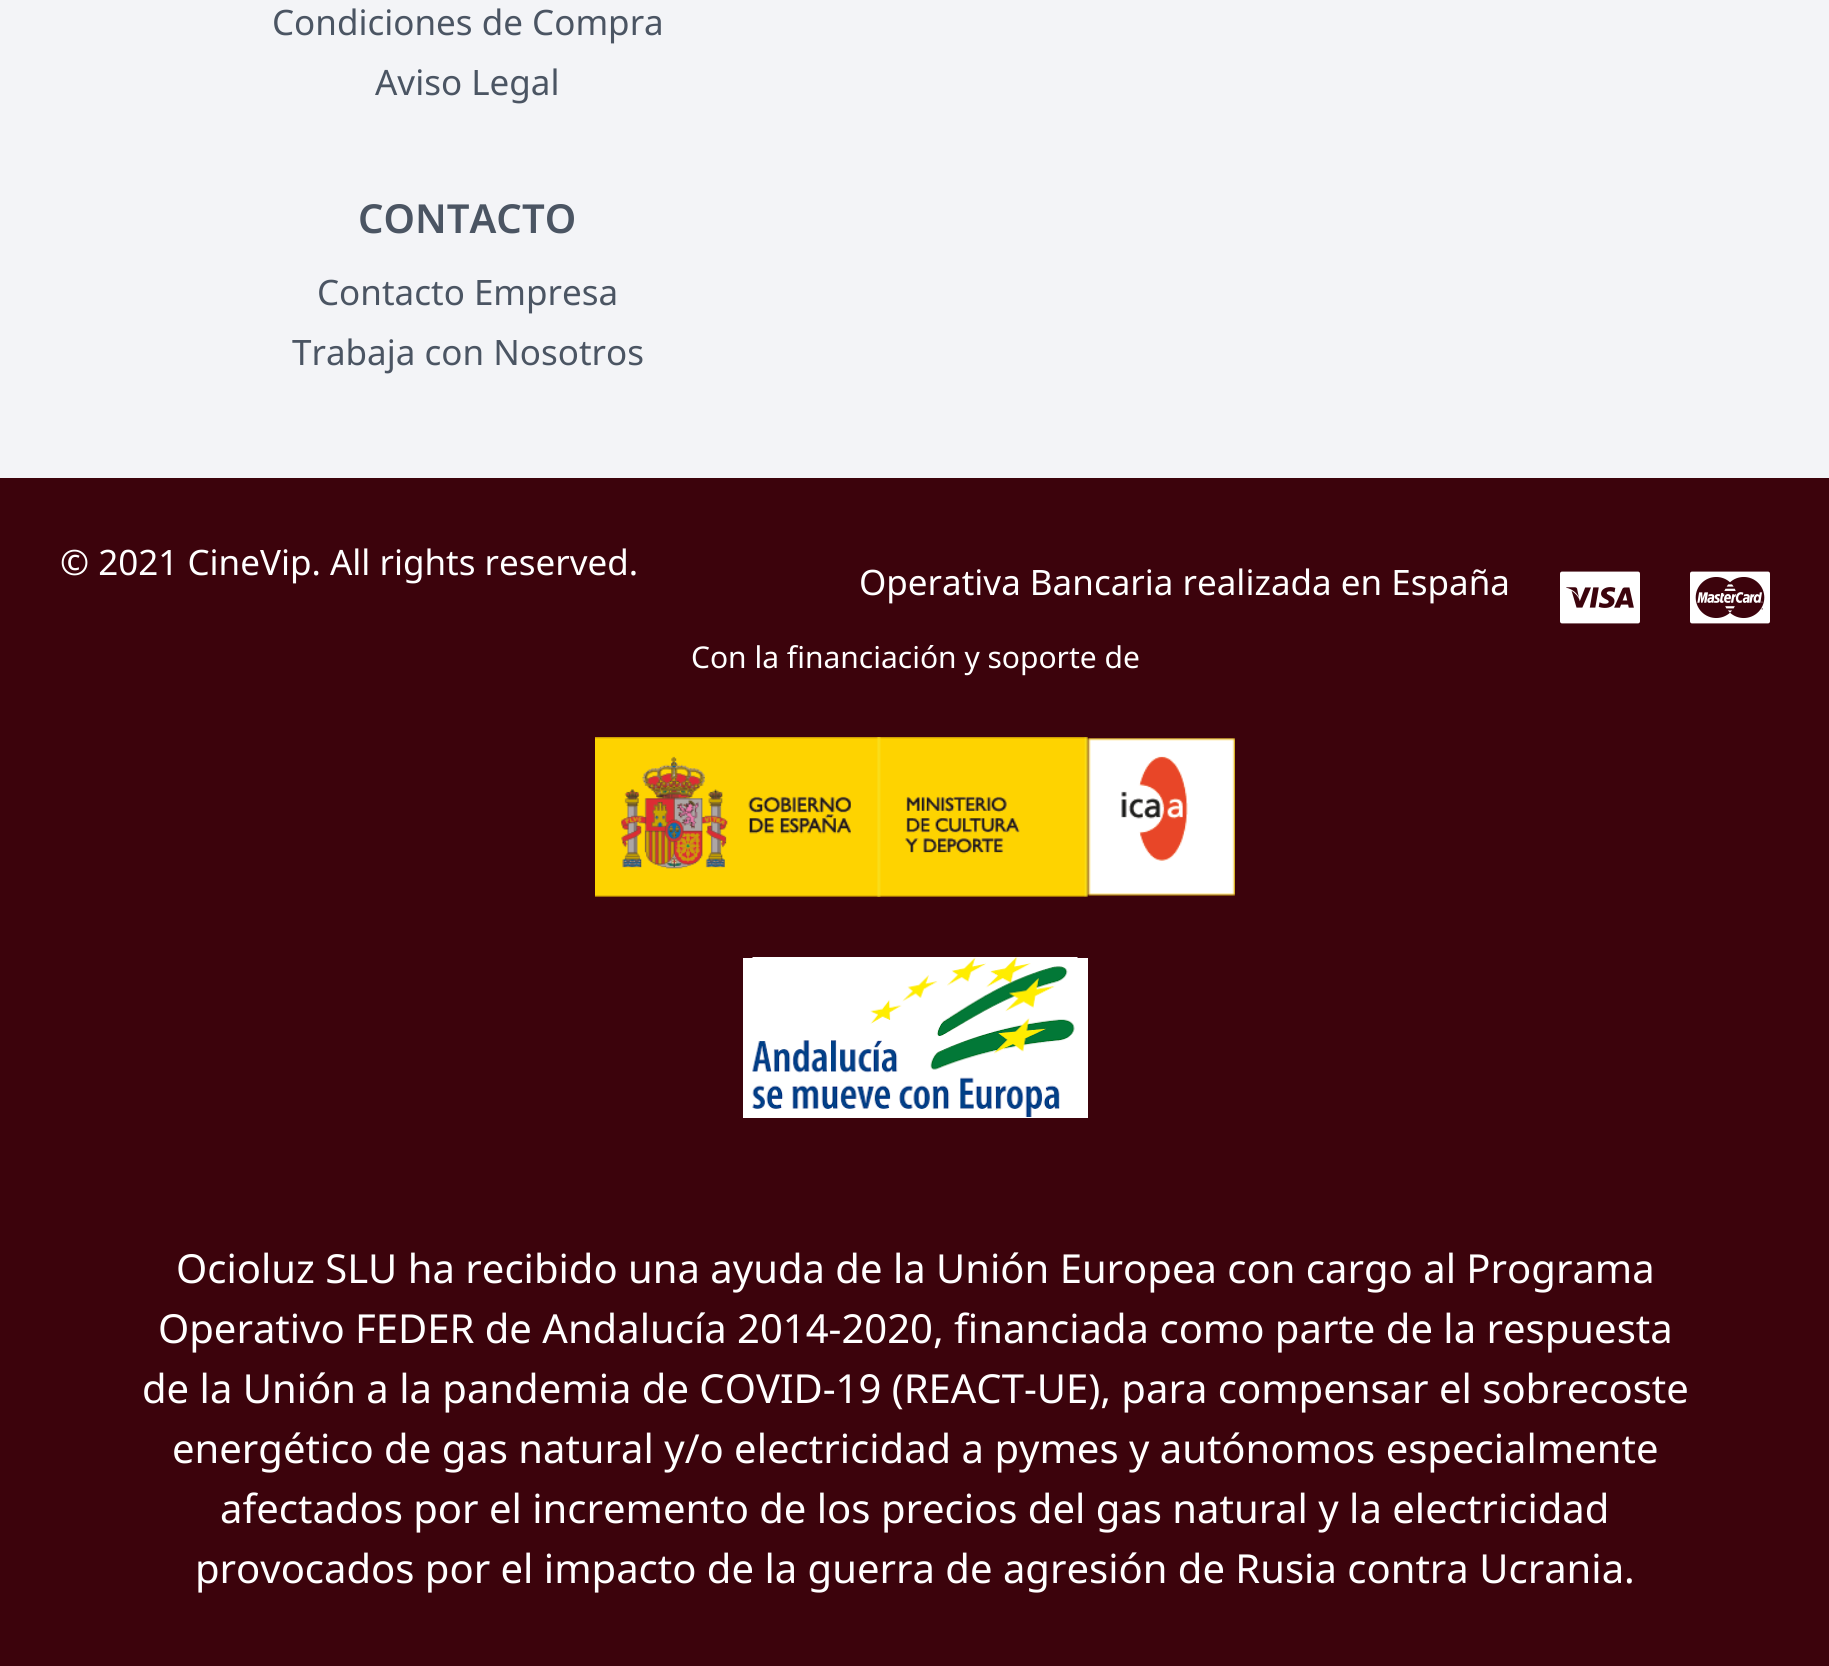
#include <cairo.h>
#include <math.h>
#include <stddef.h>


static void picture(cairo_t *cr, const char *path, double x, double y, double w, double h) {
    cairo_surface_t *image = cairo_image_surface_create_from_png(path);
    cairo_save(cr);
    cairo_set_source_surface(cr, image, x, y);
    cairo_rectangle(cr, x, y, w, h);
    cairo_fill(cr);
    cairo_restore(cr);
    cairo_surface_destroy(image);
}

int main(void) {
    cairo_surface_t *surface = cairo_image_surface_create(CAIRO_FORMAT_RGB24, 1829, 1666);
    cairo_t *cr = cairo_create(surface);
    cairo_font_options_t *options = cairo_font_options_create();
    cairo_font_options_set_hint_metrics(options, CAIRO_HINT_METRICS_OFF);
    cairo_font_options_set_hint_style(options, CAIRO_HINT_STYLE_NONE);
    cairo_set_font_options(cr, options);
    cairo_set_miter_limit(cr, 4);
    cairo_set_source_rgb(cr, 0.953, 0.957, 0.965);
    cairo_paint(cr);
    cairo_select_font_face(cr, "Noto Sans", CAIRO_FONT_SLANT_NORMAL, CAIRO_FONT_WEIGHT_NORMAL);
    cairo_set_font_size(cr, 35);
    cairo_set_source_rgb(cr, 0.294, 0.333, 0.388);
    cairo_move_to(cr, 272, 35);
    cairo_show_text(cr, "Condiciones de Compra");
    cairo_move_to(cr, 375, 95);
    cairo_show_text(cr, "Aviso Legal");
    cairo_select_font_face(cr, "Noto Sans SemiBold", CAIRO_FONT_SLANT_NORMAL, CAIRO_FONT_WEIGHT_NORMAL);
    cairo_set_font_size(cr, 40);
    cairo_move_to(cr, 358, 233);
    cairo_show_text(cr, "CONTACTO");
    cairo_select_font_face(cr, "Noto Sans", CAIRO_FONT_SLANT_NORMAL, CAIRO_FONT_WEIGHT_NORMAL);
    cairo_set_font_size(cr, 35);
    cairo_move_to(cr, 317, 305);
    cairo_show_text(cr, "Contacto Empresa");
    cairo_move_to(cr, 292, 365);
    cairo_show_text(cr, "Trabaja con Nosotros");
    cairo_set_source_rgb(cr, 0.235, 0.012, 0.047);
    cairo_rectangle(cr, 0, 478, 1829, 1188);
    cairo_fill(cr);
    cairo_set_source_rgb(cr, 1, 1, 1);
    cairo_move_to(cr, 60, 575);
    cairo_show_text(cr, "© 2021 CineVip. All rights reserved.");
    cairo_move_to(cr, 859, 595);
    cairo_show_text(cr, "Operativa Bancaria realizada en España");
    picture(cr, "img1.png", 1560, 571, 80, 53);
    picture(cr, "img2.png", 1690, 571, 80, 53);
    cairo_set_font_size(cr, 30);
    cairo_move_to(cr, 691, 668);
    cairo_show_text(cr, "Con la financiación y soporte de");
    picture(cr, "img3.png", 595, 737, 640, 160);
    cairo_rectangle(cr, 743, 958, 345, 160);
    cairo_fill(cr);
    picture(cr, "img4.png", 752, 957, 326, 160);
    cairo_set_font_size(cr, 40);
    cairo_move_to(cr, 176, 1283);
    cairo_show_text(cr, "Ocioluz SLU ha recibido una ayuda de la Unión Europea con cargo al Programa");
    cairo_move_to(cr, 158, 1343);
    cairo_show_text(cr, "Operativo FEDER de Andalucía 2014-2020, financiada como parte de la respuesta");
    cairo_move_to(cr, 142, 1403);
    cairo_show_text(cr, "de la Unión a la pandemia de COVID-19 (REACT-UE), para compensar el sobrecoste");
    cairo_move_to(cr, 172, 1463);
    cairo_show_text(cr, "energético de gas natural y/o electricidad a pymes y autónomos especialmente");
    cairo_move_to(cr, 220, 1523);
    cairo_show_text(cr, "afectados por el incremento de los precios del gas natural y la electricidad");
    cairo_move_to(cr, 195, 1583);
    cairo_show_text(cr, "provocados por el impacto de la guerra de agresión de Rusia contra Ucrania.");
    cairo_surface_write_to_png(surface, "page.png");
    cairo_font_options_destroy(options);
    cairo_destroy(cr);
    cairo_surface_destroy(surface);
    return 0;
}
